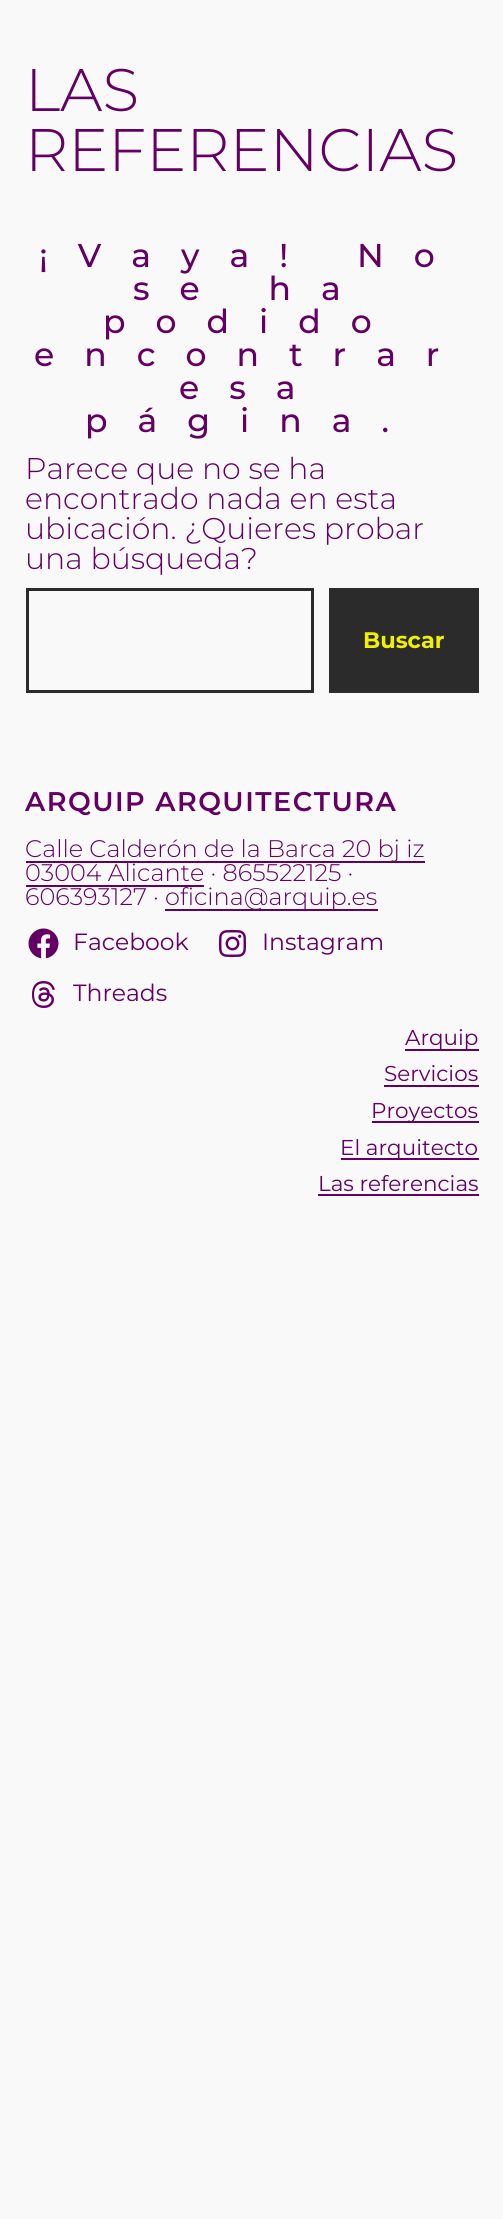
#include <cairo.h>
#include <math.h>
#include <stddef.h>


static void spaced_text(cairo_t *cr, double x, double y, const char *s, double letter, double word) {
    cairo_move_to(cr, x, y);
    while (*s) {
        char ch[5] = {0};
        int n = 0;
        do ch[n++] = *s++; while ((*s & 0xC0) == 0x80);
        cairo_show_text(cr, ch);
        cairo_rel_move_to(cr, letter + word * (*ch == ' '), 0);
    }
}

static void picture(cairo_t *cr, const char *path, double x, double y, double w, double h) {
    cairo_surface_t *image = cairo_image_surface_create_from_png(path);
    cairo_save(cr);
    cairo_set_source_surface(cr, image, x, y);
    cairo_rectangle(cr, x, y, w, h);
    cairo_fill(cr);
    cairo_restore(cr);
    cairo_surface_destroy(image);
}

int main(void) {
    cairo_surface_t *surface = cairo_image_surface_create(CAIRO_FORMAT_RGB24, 503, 2219);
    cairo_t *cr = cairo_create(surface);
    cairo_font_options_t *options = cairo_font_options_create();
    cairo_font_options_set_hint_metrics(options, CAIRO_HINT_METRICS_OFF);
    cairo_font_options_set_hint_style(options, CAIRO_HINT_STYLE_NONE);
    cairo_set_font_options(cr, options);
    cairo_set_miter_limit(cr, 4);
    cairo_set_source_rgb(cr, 0.973, 0.973, 0.973);
    cairo_paint(cr);
    cairo_select_font_face(cr, "Montserrat Light", CAIRO_FONT_SLANT_NORMAL, CAIRO_FONT_WEIGHT_NORMAL);
    cairo_set_font_size(cr, 60);
    cairo_set_source_rgb(cr, 0.392, 0, 0.392);
    cairo_move_to(cr, 25, 111);
    cairo_show_text(cr, "LAS");
    cairo_move_to(cr, 25, 171);
    cairo_show_text(cr, "REFERENCIAS");
    cairo_select_font_face(cr, "Montserrat Medium", CAIRO_FONT_SLANT_NORMAL, CAIRO_FONT_WEIGHT_NORMAL);
    cairo_set_font_size(cr, 33);
    spaced_text(cr, 39, 267, "¡Vaya! No", 30, 0);
    spaced_text(cr, 133, 300, "se ha", 30, 0);
    spaced_text(cr, 103, 333, "podido", 30, 0);
    spaced_text(cr, 34, 366, "encontrar", 30, 0);
    spaced_text(cr, 179, 399, "esa", 30, 0);
    spaced_text(cr, 85, 432, "página.", 30, 0);
    cairo_select_font_face(cr, "Montserrat Light", CAIRO_FONT_SLANT_NORMAL, CAIRO_FONT_WEIGHT_NORMAL);
    cairo_set_font_size(cr, 30);
    cairo_move_to(cr, 25, 479);
    cairo_show_text(cr, "Parece que no se ha");
    cairo_move_to(cr, 25, 509);
    cairo_show_text(cr, "encontrado nada en esta");
    cairo_move_to(cr, 25, 539);
    cairo_show_text(cr, "ubicación. ¿Quieres probar");
    cairo_move_to(cr, 25, 569);
    cairo_show_text(cr, "una búsqueda?");
    cairo_rectangle(cr, 27.5, 589.5, 285, 102);
    cairo_set_source_rgb(cr, 0.169, 0.169, 0.169);
    cairo_set_line_width(cr, 3);
    cairo_stroke(cr);
    cairo_rectangle(cr, 329, 588, 150, 105);
    cairo_fill(cr);
    cairo_select_font_face(cr, "Montserrat", CAIRO_FONT_SLANT_NORMAL, CAIRO_FONT_WEIGHT_BOLD);
    cairo_set_font_size(cr, 22.5);
    cairo_set_source_rgb(cr, 0.941, 0.941, 0);
    cairo_move_to(cr, 363, 648);
    cairo_show_text(cr, "Buscar");
    cairo_select_font_face(cr, "Montserrat SemiBold", CAIRO_FONT_SLANT_NORMAL, CAIRO_FONT_WEIGHT_NORMAL);
    cairo_set_font_size(cr, 27);
    cairo_set_source_rgb(cr, 0.392, 0, 0.392);
    spaced_text(cr, 25, 811, "ARQUIP ARQUITECTURA", 1.5, 0);
    cairo_rectangle(cr, 26, 861, 399, 2);
    cairo_fill(cr);
    cairo_select_font_face(cr, "Montserrat Light", CAIRO_FONT_SLANT_NORMAL, CAIRO_FONT_WEIGHT_NORMAL);
    cairo_set_font_size(cr, 24);
    cairo_move_to(cr, 25, 857);
    cairo_show_text(cr, "Calle Calderón de la Barca 20 bj iz");
    cairo_move_to(cr, 25, 881);
    cairo_show_text(cr, "03004 Alicante · 865522125 ·");
    cairo_rectangle(cr, 26, 885, 178, 2);
    cairo_fill(cr);
    cairo_move_to(cr, 25, 905);
    cairo_show_text(cr, "606393127 ·");
    cairo_rectangle(cr, 165, 909, 213, 2);
    cairo_fill(cr);
    cairo_move_to(cr, 165, 905);
    cairo_show_text(cr, "oficina@arquip.es");
    picture(cr, "img1.png", 28, 928, 31, 31);
    cairo_select_font_face(cr, "Montserrat", CAIRO_FONT_SLANT_NORMAL, CAIRO_FONT_WEIGHT_NORMAL);
    cairo_set_font_size(cr, 23.5);
    cairo_move_to(cr, 73, 950);
    cairo_show_text(cr, "Facebook");
    picture(cr, "img2.png", 219, 930, 27, 27);
    cairo_move_to(cr, 262, 950);
    cairo_show_text(cr, "Instagram");
    picture(cr, "img3.png", 31, 981, 24, 27);
    cairo_move_to(cr, 73, 1001);
    cairo_show_text(cr, "Threads");
    cairo_rectangle(cr, 405, 1049, 74, 2);
    cairo_fill(cr);
    cairo_set_font_size(cr, 21.5);
    cairo_move_to(cr, 405, 1045);
    cairo_show_text(cr, "Arquip");
    cairo_move_to(cr, 384, 1081);
    cairo_show_text(cr, "Servicios");
    cairo_rectangle(cr, 384, 1085, 95, 2);
    cairo_fill(cr);
    cairo_rectangle(cr, 372, 1121, 107, 2);
    cairo_fill(cr);
    cairo_move_to(cr, 371, 1118);
    cairo_show_text(cr, "Proyectos");
    cairo_rectangle(cr, 341, 1158, 138, 2);
    cairo_fill(cr);
    cairo_move_to(cr, 340, 1155);
    cairo_show_text(cr, "El arquitecto");
    cairo_move_to(cr, 318, 1191);
    cairo_show_text(cr, "Las referencias");
    cairo_rectangle(cr, 318, 1194, 161, 2);
    cairo_fill(cr);
    cairo_surface_write_to_png(surface, "page.png");
    cairo_font_options_destroy(options);
    cairo_destroy(cr);
    cairo_surface_destroy(surface);
    return 0;
}
